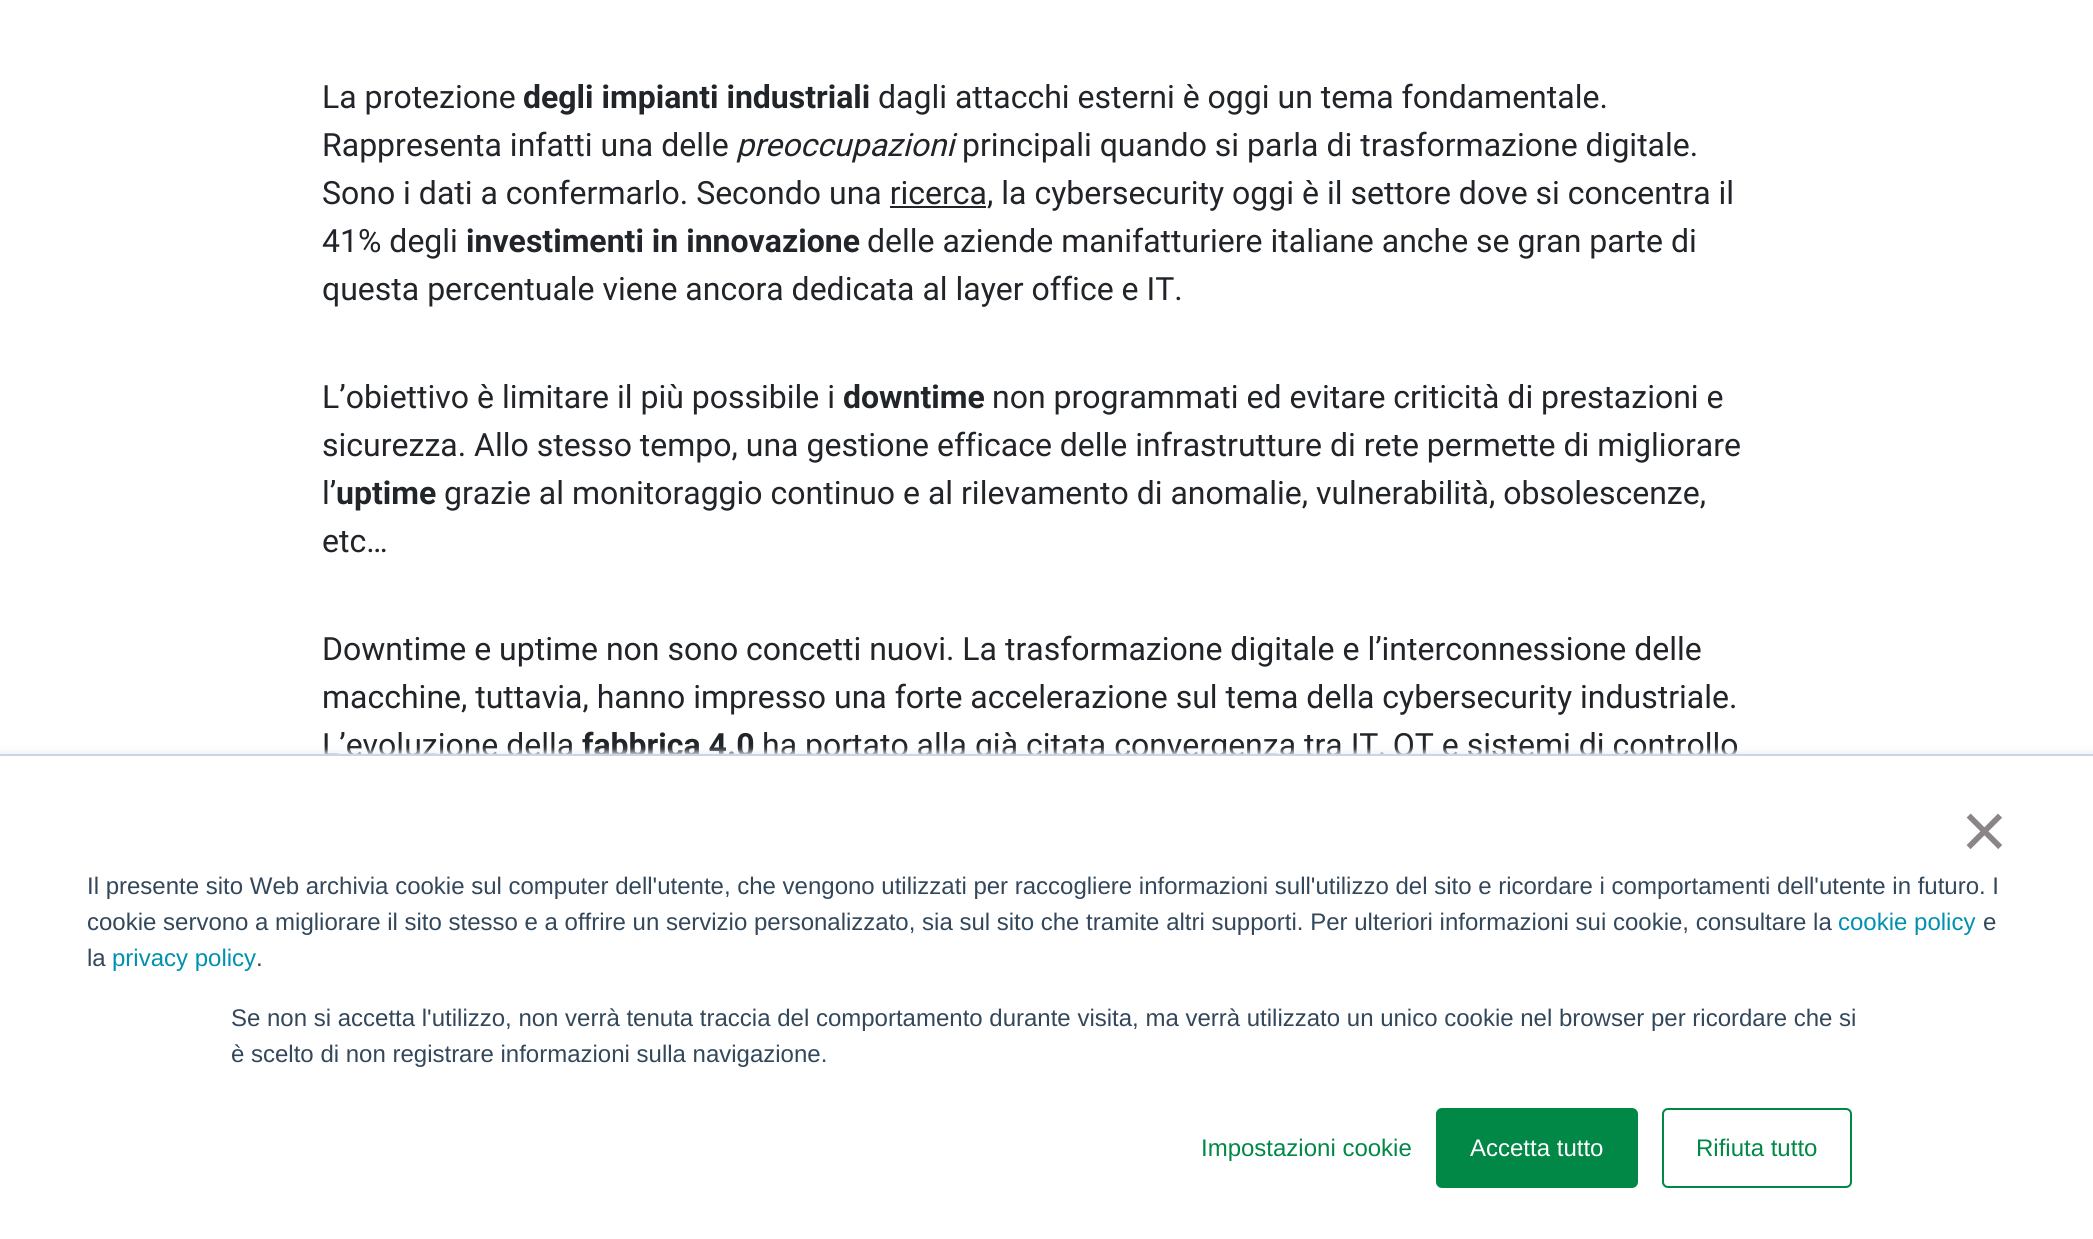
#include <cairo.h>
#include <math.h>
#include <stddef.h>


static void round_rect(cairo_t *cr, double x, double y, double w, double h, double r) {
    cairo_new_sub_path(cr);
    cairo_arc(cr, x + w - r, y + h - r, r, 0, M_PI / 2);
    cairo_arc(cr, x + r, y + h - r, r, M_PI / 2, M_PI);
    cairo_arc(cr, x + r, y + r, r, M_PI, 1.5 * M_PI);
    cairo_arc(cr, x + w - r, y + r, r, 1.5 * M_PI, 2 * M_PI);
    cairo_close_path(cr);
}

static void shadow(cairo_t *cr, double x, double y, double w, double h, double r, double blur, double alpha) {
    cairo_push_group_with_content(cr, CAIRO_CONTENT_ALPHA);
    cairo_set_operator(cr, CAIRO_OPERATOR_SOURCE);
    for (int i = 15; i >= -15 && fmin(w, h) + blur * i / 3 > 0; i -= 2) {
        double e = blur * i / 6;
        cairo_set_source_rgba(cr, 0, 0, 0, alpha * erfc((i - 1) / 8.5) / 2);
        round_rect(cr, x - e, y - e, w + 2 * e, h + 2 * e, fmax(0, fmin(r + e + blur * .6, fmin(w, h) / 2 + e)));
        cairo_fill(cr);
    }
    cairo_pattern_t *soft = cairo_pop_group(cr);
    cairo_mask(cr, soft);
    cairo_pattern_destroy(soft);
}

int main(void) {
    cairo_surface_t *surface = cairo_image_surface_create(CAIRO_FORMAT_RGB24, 2093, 1239);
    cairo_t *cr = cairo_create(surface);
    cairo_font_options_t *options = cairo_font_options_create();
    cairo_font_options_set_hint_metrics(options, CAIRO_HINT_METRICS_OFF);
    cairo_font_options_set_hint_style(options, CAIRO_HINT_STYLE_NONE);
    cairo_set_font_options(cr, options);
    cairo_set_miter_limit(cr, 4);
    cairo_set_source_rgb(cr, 1, 1, 1);
    cairo_paint(cr);
    cairo_select_font_face(cr, "Roboto", CAIRO_FONT_SLANT_NORMAL, CAIRO_FONT_WEIGHT_NORMAL);
    cairo_set_font_size(cr, 32);
    cairo_set_source_rgb(cr, 0.129, 0.145, 0.161);
    cairo_move_to(cr, 322, 108);
    cairo_show_text(cr, "La protezione");
    cairo_select_font_face(cr, "Roboto", CAIRO_FONT_SLANT_NORMAL, CAIRO_FONT_WEIGHT_BOLD);
    cairo_move_to(cr, 523, 108);
    cairo_show_text(cr, "degli impianti industriali");
    cairo_select_font_face(cr, "Roboto", CAIRO_FONT_SLANT_NORMAL, CAIRO_FONT_WEIGHT_NORMAL);
    cairo_move_to(cr, 878, 108);
    cairo_show_text(cr, "dagli attacchi esterni è oggi un tema fondamentale.");
    cairo_move_to(cr, 322, 156);
    cairo_show_text(cr, "Rappresenta infatti una delle");
    cairo_select_font_face(cr, "Roboto", CAIRO_FONT_SLANT_ITALIC, CAIRO_FONT_WEIGHT_NORMAL);
    cairo_move_to(cr, 736, 156);
    cairo_show_text(cr, "preoccupazioni");
    cairo_select_font_face(cr, "Roboto", CAIRO_FONT_SLANT_NORMAL, CAIRO_FONT_WEIGHT_NORMAL);
    cairo_move_to(cr, 962, 156);
    cairo_show_text(cr, "principali quando si parla di trasformazione digitale.");
    cairo_move_to(cr, 322, 204);
    cairo_show_text(cr, "Sono i dati a confermarlo. Secondo una ricerca, la cybersecurity oggi è il settore dove si concentra il");
    cairo_rectangle(cr, 890, 206, 96, 2);
    cairo_fill(cr);
    cairo_move_to(cr, 322, 252);
    cairo_show_text(cr, "41% degli");
    cairo_select_font_face(cr, "Roboto", CAIRO_FONT_SLANT_NORMAL, CAIRO_FONT_WEIGHT_BOLD);
    cairo_move_to(cr, 466, 252);
    cairo_show_text(cr, "investimenti in innovazione");
    cairo_select_font_face(cr, "Roboto", CAIRO_FONT_SLANT_NORMAL, CAIRO_FONT_WEIGHT_NORMAL);
    cairo_move_to(cr, 867, 252);
    cairo_show_text(cr, "delle aziende manifatturiere italiane anche se gran parte di");
    cairo_move_to(cr, 322, 300);
    cairo_show_text(cr, "questa percentuale viene ancora dedicata al layer office e IT.");
    cairo_move_to(cr, 322, 408);
    cairo_show_text(cr, "L’obiettivo è limitare il più possibile i");
    cairo_select_font_face(cr, "Roboto", CAIRO_FONT_SLANT_NORMAL, CAIRO_FONT_WEIGHT_BOLD);
    cairo_move_to(cr, 843, 408);
    cairo_show_text(cr, "downtime");
    cairo_select_font_face(cr, "Roboto", CAIRO_FONT_SLANT_NORMAL, CAIRO_FONT_WEIGHT_NORMAL);
    cairo_move_to(cr, 992, 408);
    cairo_show_text(cr, "non programmati ed evitare criticità di prestazioni e");
    cairo_move_to(cr, 322, 456);
    cairo_show_text(cr, "sicurezza. Allo stesso tempo, una gestione efficace delle infrastrutture di rete permette di migliorare");
    cairo_move_to(cr, 322, 504);
    cairo_show_text(cr, "l’");
    cairo_select_font_face(cr, "Roboto", CAIRO_FONT_SLANT_NORMAL, CAIRO_FONT_WEIGHT_BOLD);
    cairo_move_to(cr, 336, 504);
    cairo_show_text(cr, "uptime");
    cairo_select_font_face(cr, "Roboto", CAIRO_FONT_SLANT_NORMAL, CAIRO_FONT_WEIGHT_NORMAL);
    cairo_move_to(cr, 444, 504);
    cairo_show_text(cr, "grazie al monitoraggio continuo e al rilevamento di anomalie, vulnerabilità, obsolescenze,");
    cairo_move_to(cr, 322, 552);
    cairo_show_text(cr, "etc…");
    cairo_move_to(cr, 322, 660);
    cairo_show_text(cr, "Downtime e uptime non sono concetti nuovi. La trasformazione digitale e l’interconnessione delle");
    cairo_move_to(cr, 322, 708);
    cairo_show_text(cr, "macchine, tuttavia, hanno impresso una forte accelerazione sul tema della cybersecurity industriale.");
    cairo_move_to(cr, 322, 756);
    cairo_show_text(cr, "L’evoluzione della");
    cairo_select_font_face(cr, "Roboto", CAIRO_FONT_SLANT_NORMAL, CAIRO_FONT_WEIGHT_BOLD);
    cairo_move_to(cr, 582, 756);
    cairo_show_text(cr, "fabbrica 4.0");
    cairo_select_font_face(cr, "Roboto", CAIRO_FONT_SLANT_NORMAL, CAIRO_FONT_WEIGHT_NORMAL);
    cairo_move_to(cr, 762, 756);
    cairo_show_text(cr, "ha portato alla già citata convergenza tra IT, OT e sistemi di controllo");
    cairo_set_source_rgb(cr, 0.918, 0.941, 0.965);
    shadow(cr, 0, 752, 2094, 486, 0, 3, 1);
    cairo_set_source_rgb(cr, 1, 1, 1);
    cairo_rectangle(cr, 0, 756, 2093, 483);
    cairo_fill(cr);
    cairo_set_source_rgb(cr, 0.796, 0.839, 0.886);
    cairo_rectangle(cr, 0, 754, 2093, 2);
    cairo_fill(cr);
    cairo_select_font_face(cr, "Liberation Sans", CAIRO_FONT_SLANT_NORMAL, CAIRO_FONT_WEIGHT_NORMAL);
    cairo_set_font_size(cr, 80);
    cairo_set_source_rgb(cr, 0.545, 0.522, 0.537);
    cairo_move_to(cr, 1961, 858);
    cairo_show_text(cr, "×");
    cairo_set_font_size(cr, 24);
    cairo_set_source_rgb(cr, 0.2, 0.278, 0.357);
    cairo_move_to(cr, 87, 894);
    cairo_show_text(cr, "Il presente sito Web archivia cookie sul computer dell'utente, che vengono utilizzati per raccogliere informazioni sull'utilizzo del sito e ricordare i comportamenti dell'utente in futuro. I");
    cairo_move_to(cr, 87, 930);
    cairo_show_text(cr, "cookie servono a migliorare il sito stesso e a offrire un servizio personalizzato, sia sul sito che tramite altri supporti. Per ulteriori informazioni sui cookie, consultare la");
    cairo_set_source_rgb(cr, 0, 0.569, 0.682);
    cairo_move_to(cr, 1838, 930);
    cairo_show_text(cr, "cookie policy");
    cairo_set_source_rgb(cr, 0.2, 0.278, 0.357);
    cairo_move_to(cr, 1983, 930);
    cairo_show_text(cr, "e");
    cairo_move_to(cr, 87, 966);
    cairo_show_text(cr, "la");
    cairo_set_source_rgb(cr, 0, 0.569, 0.682);
    cairo_move_to(cr, 112, 966);
    cairo_show_text(cr, "privacy policy");
    cairo_set_source_rgb(cr, 0.2, 0.278, 0.357);
    cairo_move_to(cr, 256, 966);
    cairo_show_text(cr, ".");
    cairo_move_to(cr, 231, 1026);
    cairo_show_text(cr, "Se non si accetta l'utilizzo, non verrà tenuta traccia del comportamento durante visita, ma verrà utilizzato un unico cookie nel browser per ricordare che si");
    cairo_move_to(cr, 231, 1062);
    cairo_show_text(cr, "è scelto di non registrare informazioni sulla navigazione.");
    cairo_set_source_rgb(cr, 0.004, 0.533, 0.275);
    cairo_move_to(cr, 1201, 1156);
    cairo_show_text(cr, "Impostazioni cookie");
    round_rect(cr, 1437, 1109, 200, 78, 5);
    cairo_fill_preserve(cr);
    cairo_stroke(cr);
    cairo_set_source_rgb(cr, 1, 1, 1);
    cairo_move_to(cr, 1470, 1156);
    cairo_show_text(cr, "Accetta tutto");
    round_rect(cr, 1663, 1109, 188, 78, 5);
    cairo_set_source_rgb(cr, 0.004, 0.533, 0.275);
    cairo_stroke(cr);
    cairo_move_to(cr, 1696, 1156);
    cairo_show_text(cr, "Rifiuta tutto");
    cairo_surface_write_to_png(surface, "page.png");
    cairo_font_options_destroy(options);
    cairo_destroy(cr);
    cairo_surface_destroy(surface);
    return 0;
}
